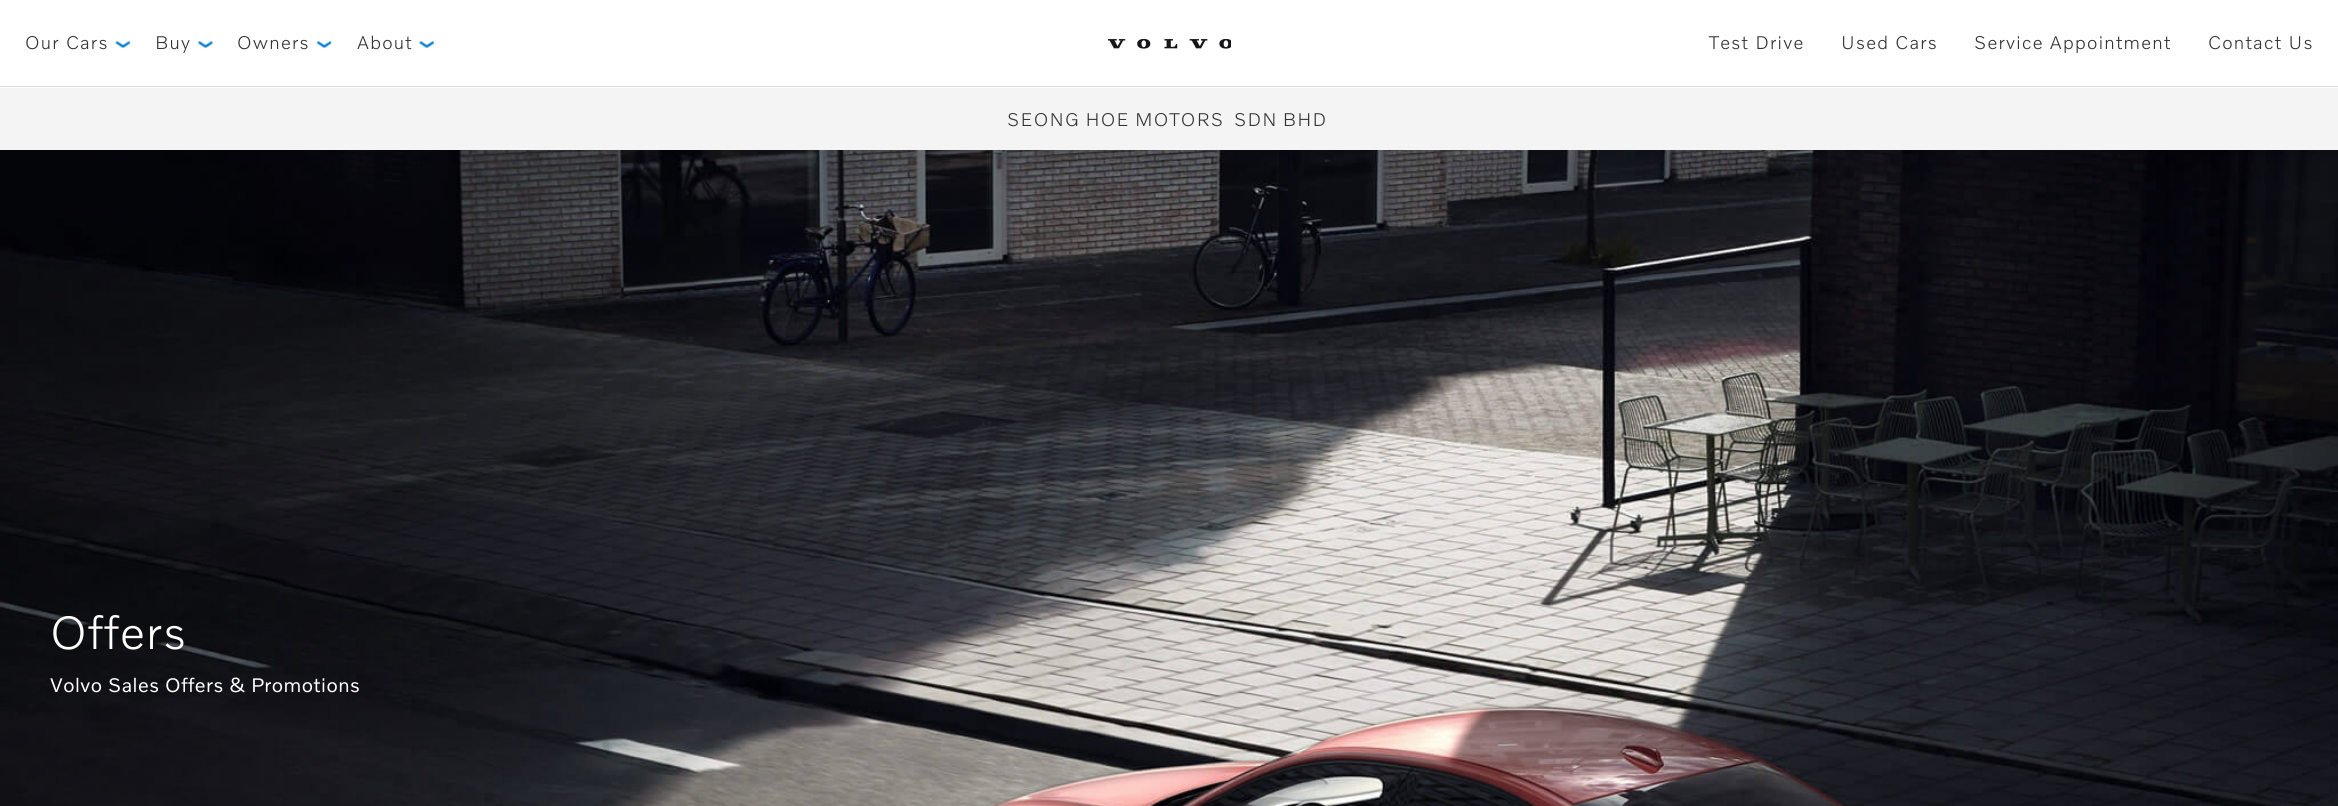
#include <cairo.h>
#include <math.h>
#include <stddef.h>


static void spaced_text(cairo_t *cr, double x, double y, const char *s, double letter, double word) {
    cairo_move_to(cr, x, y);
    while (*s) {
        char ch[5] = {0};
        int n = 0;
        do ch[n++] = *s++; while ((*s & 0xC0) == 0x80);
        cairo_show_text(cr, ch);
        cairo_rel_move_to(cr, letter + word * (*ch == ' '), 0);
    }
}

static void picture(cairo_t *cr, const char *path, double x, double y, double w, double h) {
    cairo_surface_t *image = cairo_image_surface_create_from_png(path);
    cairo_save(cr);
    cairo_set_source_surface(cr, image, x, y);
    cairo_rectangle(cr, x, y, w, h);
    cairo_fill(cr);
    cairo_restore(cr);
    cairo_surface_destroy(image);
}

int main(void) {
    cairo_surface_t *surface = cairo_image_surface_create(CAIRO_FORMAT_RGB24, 2338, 806);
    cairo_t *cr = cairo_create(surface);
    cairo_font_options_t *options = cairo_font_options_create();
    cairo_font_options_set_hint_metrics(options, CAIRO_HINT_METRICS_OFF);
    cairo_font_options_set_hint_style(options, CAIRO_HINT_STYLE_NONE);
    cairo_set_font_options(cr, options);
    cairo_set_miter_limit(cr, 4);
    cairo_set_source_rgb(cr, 1, 1, 1);
    cairo_paint(cr);
    cairo_set_source_rgb(cr, 0.867, 0.867, 0.867);
    cairo_rectangle(cr, 0, 86, 2338, 1);
    cairo_fill(cr);
    cairo_select_font_face(cr, "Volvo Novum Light", CAIRO_FONT_SLANT_NORMAL, CAIRO_FONT_WEIGHT_NORMAL);
    cairo_set_font_size(cr, 18.75);
    cairo_set_source_rgb(cr, 0.2, 0.2, 0.2);
    spaced_text(cr, 25, 49, "Our Cars", 1.25, 0);
    picture(cr, "img1.png", 115, 41, 15, 7);
    spaced_text(cr, 155, 49, "Buy", 1.25, 0);
    picture(cr, "img2.png", 197, 41, 16, 7);
    spaced_text(cr, 237, 49, "Owners", 1.25, 0);
    picture(cr, "img3.png", 316, 41, 16, 7);
    spaced_text(cr, 357, 49, "About", 1.25, 0);
    picture(cr, "img4.png", 418, 41, 16, 7);
    spaced_text(cr, 1709, 49, "Test Drive", 1.25, 0);
    spaced_text(cr, 1841, 49, "Used Cars", 1.25, 0);
    spaced_text(cr, 1974, 49, "Service Appointment", 1.25, 0);
    spaced_text(cr, 2208, 49, "Contact Us", 1.25, 0);
    picture(cr, "img5.png", 1108, 39, 123, 10);
    cairo_set_source_rgb(cr, 0.957, 0.957, 0.957);
    cairo_rectangle(cr, 0, 88, 2338, 62);
    cairo_fill(cr);
    cairo_set_source_rgb(cr, 0.2, 0.2, 0.2);
    spaced_text(cr, 1007, 126, "SEONG HOE MOTORS", 1.25, -1);
    spaced_text(cr, 1234, 126, "SDN BHD", 1.25, -1);
    picture(cr, "img6.png", 0, 150, 2338, 656);
    cairo_set_font_size(cr, 47.5);
    cairo_set_source_rgb(cr, 1, 1, 1);
    spaced_text(cr, 50, 649, "Offers", 1.25, 0);
    cairo_select_font_face(cr, "Volvo Novum", CAIRO_FONT_SLANT_NORMAL, CAIRO_FONT_WEIGHT_NORMAL);
    cairo_set_font_size(cr, 20);
    spaced_text(cr, 50, 692, "Volvo Sales Offers & Promotions", 0.5, 0);
    cairo_surface_write_to_png(surface, "page.png");
    cairo_font_options_destroy(options);
    cairo_destroy(cr);
    cairo_surface_destroy(surface);
    return 0;
}
